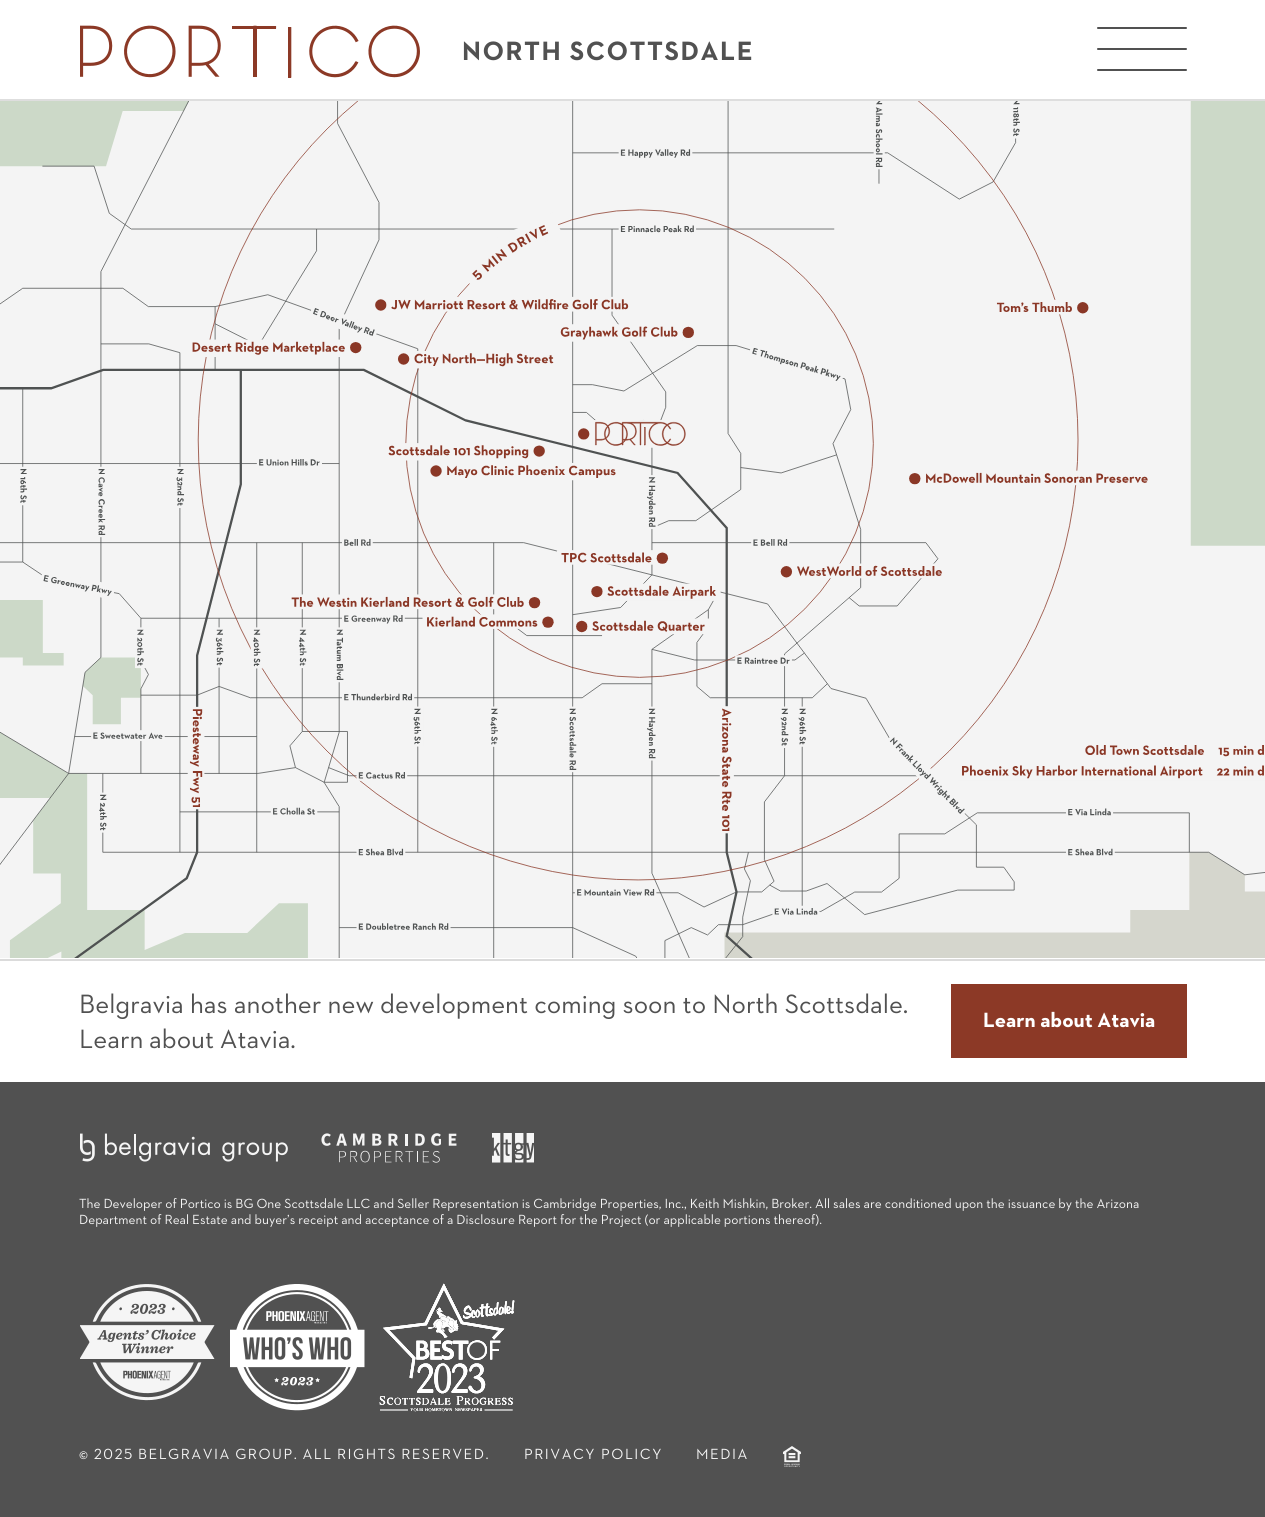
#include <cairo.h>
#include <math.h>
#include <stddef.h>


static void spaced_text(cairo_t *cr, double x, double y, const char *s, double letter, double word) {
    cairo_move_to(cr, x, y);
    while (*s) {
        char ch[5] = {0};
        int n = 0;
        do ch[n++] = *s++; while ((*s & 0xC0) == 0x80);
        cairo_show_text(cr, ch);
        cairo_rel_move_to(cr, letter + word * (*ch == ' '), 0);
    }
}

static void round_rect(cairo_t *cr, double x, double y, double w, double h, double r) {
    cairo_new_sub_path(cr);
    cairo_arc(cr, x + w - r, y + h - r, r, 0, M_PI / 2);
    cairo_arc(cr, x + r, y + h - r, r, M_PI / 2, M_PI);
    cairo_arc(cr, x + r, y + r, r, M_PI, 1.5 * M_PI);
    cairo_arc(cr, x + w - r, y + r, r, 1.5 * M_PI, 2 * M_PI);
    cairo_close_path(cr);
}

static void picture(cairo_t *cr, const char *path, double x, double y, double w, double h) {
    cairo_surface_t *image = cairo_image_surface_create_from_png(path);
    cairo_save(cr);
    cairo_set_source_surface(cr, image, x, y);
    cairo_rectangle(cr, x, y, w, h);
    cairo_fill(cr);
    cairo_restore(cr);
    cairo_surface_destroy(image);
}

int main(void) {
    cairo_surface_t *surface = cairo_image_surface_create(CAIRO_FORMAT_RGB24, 1265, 1517);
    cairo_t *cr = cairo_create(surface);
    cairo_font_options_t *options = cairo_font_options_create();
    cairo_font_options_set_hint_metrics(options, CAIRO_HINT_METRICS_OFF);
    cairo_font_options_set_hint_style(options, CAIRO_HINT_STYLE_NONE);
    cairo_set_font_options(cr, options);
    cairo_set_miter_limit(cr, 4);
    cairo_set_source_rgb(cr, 1, 1, 1);
    cairo_paint(cr);
    picture(cr, "img1.png", 80, 25, 340, 53);
    cairo_select_font_face(cr, "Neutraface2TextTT", CAIRO_FONT_SLANT_NORMAL, CAIRO_FONT_WEIGHT_BOLD);
    cairo_set_font_size(cr, 27);
    cairo_set_source_rgb(cr, 0.318, 0.318, 0.318);
    spaced_text(cr, 462, 60, "NORTH SCOTTSDALE", 1.5, 0);
    round_rect(cr, 1097, 27, 90, 2, 1);
    cairo_fill(cr);
    round_rect(cr, 1097, 48, 90, 2, 1);
    cairo_fill(cr);
    round_rect(cr, 1097, 69, 90, 2, 1);
    cairo_fill(cr);
    cairo_set_source_rgb(cr, 0.871, 0.871, 0.871);
    cairo_rectangle(cr, 0, 99, 1265, 2);
    cairo_fill(cr);
    picture(cr, "img2.png", 0, 101, 1265, 857);
    cairo_set_source_rgb(cr, 0.859, 0.859, 0.859);
    cairo_rectangle(cr, 0, 959, 1265, 2);
    cairo_fill(cr);
    cairo_select_font_face(cr, "Neutraface2TextTT", CAIRO_FONT_SLANT_NORMAL, CAIRO_FONT_WEIGHT_NORMAL);
    cairo_set_source_rgb(cr, 0.318, 0.318, 0.318);
    spaced_text(cr, 79, 1013, "Belgravia has another new development coming soon to North Scottsdale.", 0, -0.25);
    spaced_text(cr, 79, 1048, "Learn about Atavia.", 0, -0.75);
    cairo_set_source_rgb(cr, 0.549, 0.224, 0.149);
    cairo_rectangle(cr, 951, 984, 236, 74);
    cairo_fill(cr);
    cairo_select_font_face(cr, "Neutraface2TextTT", CAIRO_FONT_SLANT_NORMAL, CAIRO_FONT_WEIGHT_BOLD);
    cairo_set_font_size(cr, 21);
    cairo_set_source_rgb(cr, 1, 1, 1);
    cairo_move_to(cr, 983, 1027);
    cairo_show_text(cr, "Learn about Atavia");
    cairo_set_source_rgb(cr, 0.318, 0.318, 0.318);
    cairo_rectangle(cr, 0, 1082, 1265, 435);
    cairo_fill(cr);
    picture(cr, "img3.png", 80, 1133, 208, 29);
    picture(cr, "img4.png", 321, 1133, 136, 30);
    picture(cr, "img5.png", 492, 1133, 42, 30);
    cairo_select_font_face(cr, "Neutraface2TextTT", CAIRO_FONT_SLANT_NORMAL, CAIRO_FONT_WEIGHT_NORMAL);
    cairo_set_font_size(cr, 13.5);
    cairo_set_source_rgb(cr, 0.961, 0.961, 0.961);
    spaced_text(cr, 79, 1208, "The Developer of Portico is BG One Scottsdale LLC and Seller Representation is Cambridge Properties, Inc., Keith Mishkin, Broker. All sales are conditioned upon the issuance by the Arizona", 0, -0.2);
    spaced_text(cr, 79, 1224, "Department of Real Estate and buyer’s receipt and acceptance of a Disclosure Report for the Project (or applicable portions thereof).", 0, -0.2);
    picture(cr, "img6.png", 80, 1284, 135, 117);
    picture(cr, "img7.png", 230, 1284, 135, 127);
    picture(cr, "img8.png", 379, 1283, 136, 129);
    cairo_set_font_size(cr, 15);
    spaced_text(cr, 79, 1459, "© 2025 BELGRAVIA GROUP. ALL RIGHTS RESERVED.", 1.5, -0.75);
    spaced_text(cr, 524, 1459, "PRIVACY POLICY", 1.5, 0);
    spaced_text(cr, 696, 1459, "MEDIA", 1.5, 0);
    picture(cr, "img9.png", 783, 1446, 18, 21);
    cairo_surface_write_to_png(surface, "page.png");
    cairo_font_options_destroy(options);
    cairo_destroy(cr);
    cairo_surface_destroy(surface);
    return 0;
}
